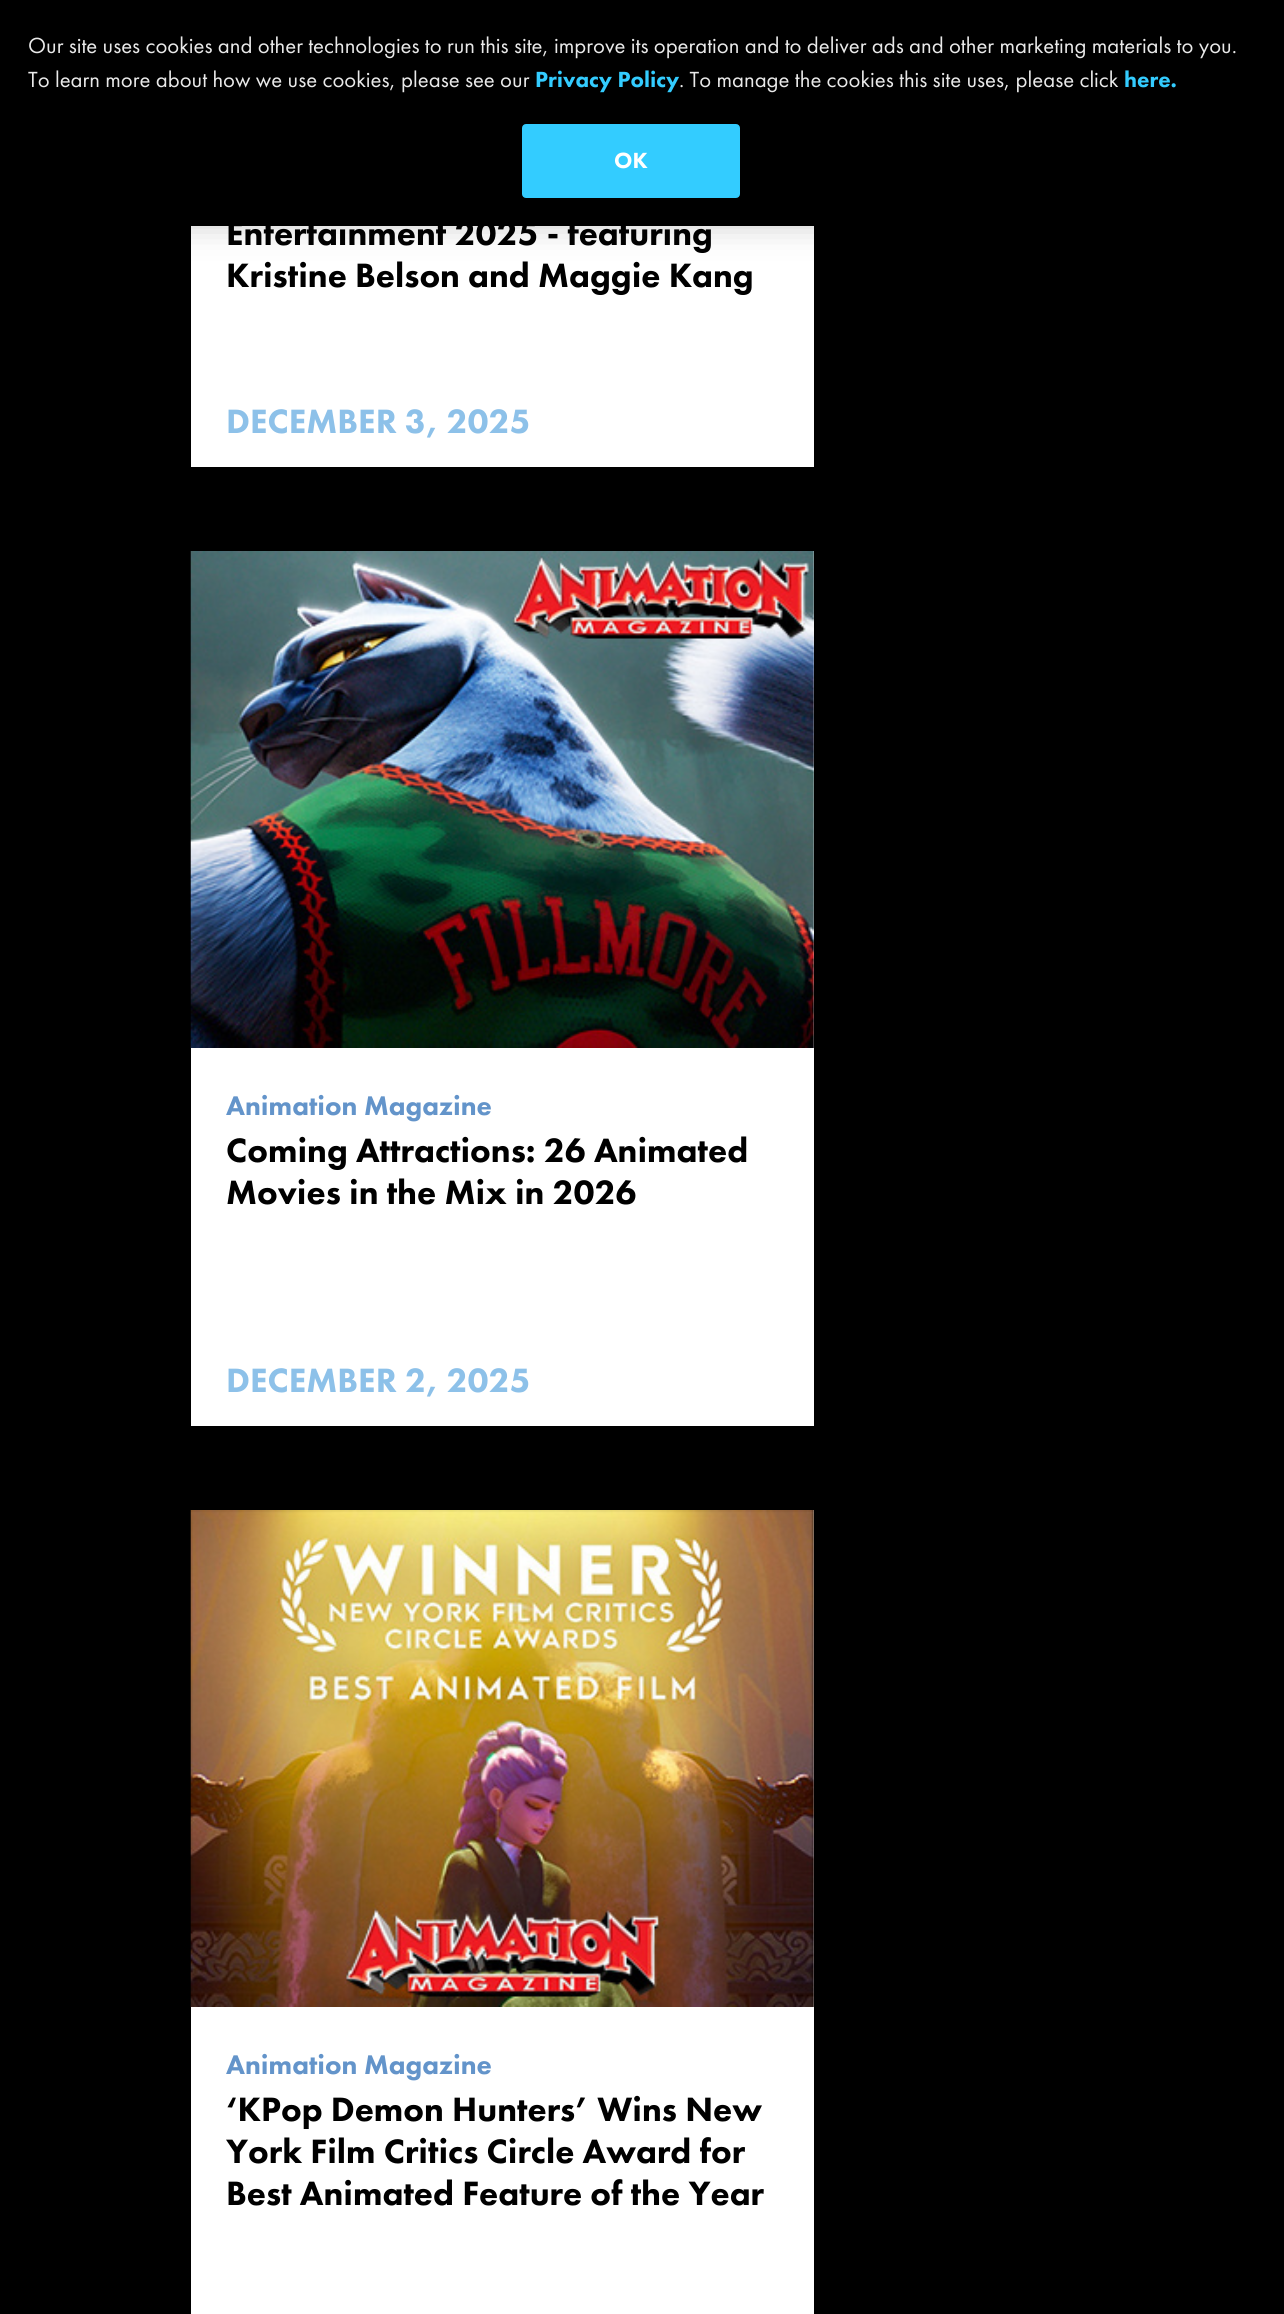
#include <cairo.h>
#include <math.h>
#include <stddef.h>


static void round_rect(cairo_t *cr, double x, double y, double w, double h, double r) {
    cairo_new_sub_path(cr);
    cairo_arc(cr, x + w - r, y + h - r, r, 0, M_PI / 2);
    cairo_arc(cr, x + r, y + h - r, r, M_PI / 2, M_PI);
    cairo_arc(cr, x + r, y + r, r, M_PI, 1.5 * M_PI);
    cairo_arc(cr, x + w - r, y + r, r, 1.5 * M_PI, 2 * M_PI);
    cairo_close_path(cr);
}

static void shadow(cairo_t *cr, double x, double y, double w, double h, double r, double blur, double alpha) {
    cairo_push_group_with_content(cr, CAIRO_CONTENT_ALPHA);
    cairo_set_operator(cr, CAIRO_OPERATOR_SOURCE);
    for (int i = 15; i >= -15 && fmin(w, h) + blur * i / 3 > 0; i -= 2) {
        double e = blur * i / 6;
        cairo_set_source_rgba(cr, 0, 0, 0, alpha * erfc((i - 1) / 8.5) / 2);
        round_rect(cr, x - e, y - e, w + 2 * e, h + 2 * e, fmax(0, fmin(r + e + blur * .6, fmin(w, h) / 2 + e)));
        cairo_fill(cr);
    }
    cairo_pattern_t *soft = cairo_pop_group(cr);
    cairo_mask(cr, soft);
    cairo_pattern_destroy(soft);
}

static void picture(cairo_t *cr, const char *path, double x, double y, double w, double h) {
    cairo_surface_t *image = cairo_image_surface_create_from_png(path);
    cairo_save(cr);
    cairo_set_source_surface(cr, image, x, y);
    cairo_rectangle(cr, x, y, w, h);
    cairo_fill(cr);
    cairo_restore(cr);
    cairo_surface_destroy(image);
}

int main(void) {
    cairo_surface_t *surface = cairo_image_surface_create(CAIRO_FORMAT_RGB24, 1284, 2314);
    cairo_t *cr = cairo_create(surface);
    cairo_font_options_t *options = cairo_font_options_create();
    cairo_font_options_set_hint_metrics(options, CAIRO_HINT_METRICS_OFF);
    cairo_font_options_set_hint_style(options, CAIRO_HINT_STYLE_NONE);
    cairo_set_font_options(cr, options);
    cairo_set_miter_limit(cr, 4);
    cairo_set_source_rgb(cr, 0, 0, 0);
    cairo_paint(cr);
    cairo_set_source_rgb(cr, 1, 1, 1);
    cairo_rectangle(cr, 191, 226, 623, 241);
    cairo_fill(cr);
    cairo_set_source_rgb(cr, 0, 0, 0);
    shadow(cr, 0, 0, 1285, 226, 0, 16, 0.2);
    cairo_select_font_face(cr, "Futura PT", CAIRO_FONT_SLANT_NORMAL, CAIRO_FONT_WEIGHT_NORMAL);
    cairo_set_font_size(cr, 22.75);
    cairo_set_source_rgb(cr, 0.914, 0.914, 0.914);
    cairo_move_to(cr, 28, 53);
    cairo_show_text(cr, "Our site uses cookies and other technologies to run this site, improve its operation and to deliver ads and other marketing materials to you.");
    cairo_move_to(cr, 28, 87);
    cairo_show_text(cr, "To learn more about how we use cookies, please see our");
    cairo_select_font_face(cr, "Futura PT Black", CAIRO_FONT_SLANT_NORMAL, CAIRO_FONT_WEIGHT_NORMAL);
    cairo_set_source_rgb(cr, 0.2, 0.8, 1);
    cairo_move_to(cr, 535, 87);
    cairo_show_text(cr, "Privacy Policy");
    cairo_select_font_face(cr, "Futura PT", CAIRO_FONT_SLANT_NORMAL, CAIRO_FONT_WEIGHT_NORMAL);
    cairo_set_source_rgb(cr, 0.914, 0.914, 0.914);
    cairo_move_to(cr, 679, 87);
    cairo_show_text(cr, ". To manage the cookies this site uses, please click");
    cairo_select_font_face(cr, "Futura PT Black", CAIRO_FONT_SLANT_NORMAL, CAIRO_FONT_WEIGHT_NORMAL);
    cairo_set_source_rgb(cr, 0.2, 0.8, 1);
    cairo_move_to(cr, 1124, 87);
    cairo_show_text(cr, "here.");
    round_rect(cr, 523, 125, 216, 72, 3);
    cairo_fill_preserve(cr);
    cairo_stroke(cr);
    cairo_set_source_rgb(cr, 1, 1, 1);
    cairo_move_to(cr, 614, 168);
    cairo_show_text(cr, "OK");
    cairo_set_font_size(cr, 35);
    cairo_set_source_rgb(cr, 0, 0, 0);
    cairo_move_to(cr, 226, 245);
    cairo_show_text(cr, "Entertainment 2025 - featuring");
    cairo_move_to(cr, 226, 287);
    cairo_show_text(cr, "Kristine Belson and Maggie Kang");
    cairo_set_source_rgb(cr, 0.553, 0.757, 0.914);
    cairo_move_to(cr, 226, 433);
    cairo_show_text(cr, "DECEMBER 3, 2025");
    cairo_set_source_rgb(cr, 1, 1, 1);
    cairo_rectangle(cr, 191, 551, 623, 875);
    cairo_fill(cr);
    picture(cr, "img1.png", 190, 551, 624, 497);
    cairo_set_font_size(cr, 28);
    cairo_set_source_rgb(cr, 0.388, 0.58, 0.792);
    cairo_move_to(cr, 226, 1115);
    cairo_show_text(cr, "Animation Magazine");
    cairo_set_font_size(cr, 35);
    cairo_set_source_rgb(cr, 0, 0, 0);
    cairo_move_to(cr, 226, 1162);
    cairo_show_text(cr, "Coming Attractions: 26 Animated");
    cairo_move_to(cr, 226, 1204);
    cairo_show_text(cr, "Movies in the Mix in 2026");
    cairo_set_source_rgb(cr, 0.553, 0.757, 0.914);
    cairo_move_to(cr, 226, 1392);
    cairo_show_text(cr, "DECEMBER 2, 2025");
    cairo_set_source_rgb(cr, 1, 1, 1);
    cairo_rectangle(cr, 191, 1510, 623, 804);
    cairo_fill(cr);
    picture(cr, "img2.png", 190, 1510, 624, 497);
    cairo_set_font_size(cr, 28);
    cairo_set_source_rgb(cr, 0.388, 0.58, 0.792);
    cairo_move_to(cr, 226, 2074);
    cairo_show_text(cr, "Animation Magazine");
    cairo_set_font_size(cr, 35);
    cairo_set_source_rgb(cr, 0, 0, 0);
    cairo_move_to(cr, 226, 2121);
    cairo_show_text(cr, "‘KPop Demon Hunters’ Wins New");
    cairo_move_to(cr, 226, 2163);
    cairo_show_text(cr, "York Film Critics Circle Award for");
    cairo_move_to(cr, 226, 2205);
    cairo_show_text(cr, "Best Animated Feature of the Year");
    cairo_surface_write_to_png(surface, "page.png");
    cairo_font_options_destroy(options);
    cairo_destroy(cr);
    cairo_surface_destroy(surface);
    return 0;
}
